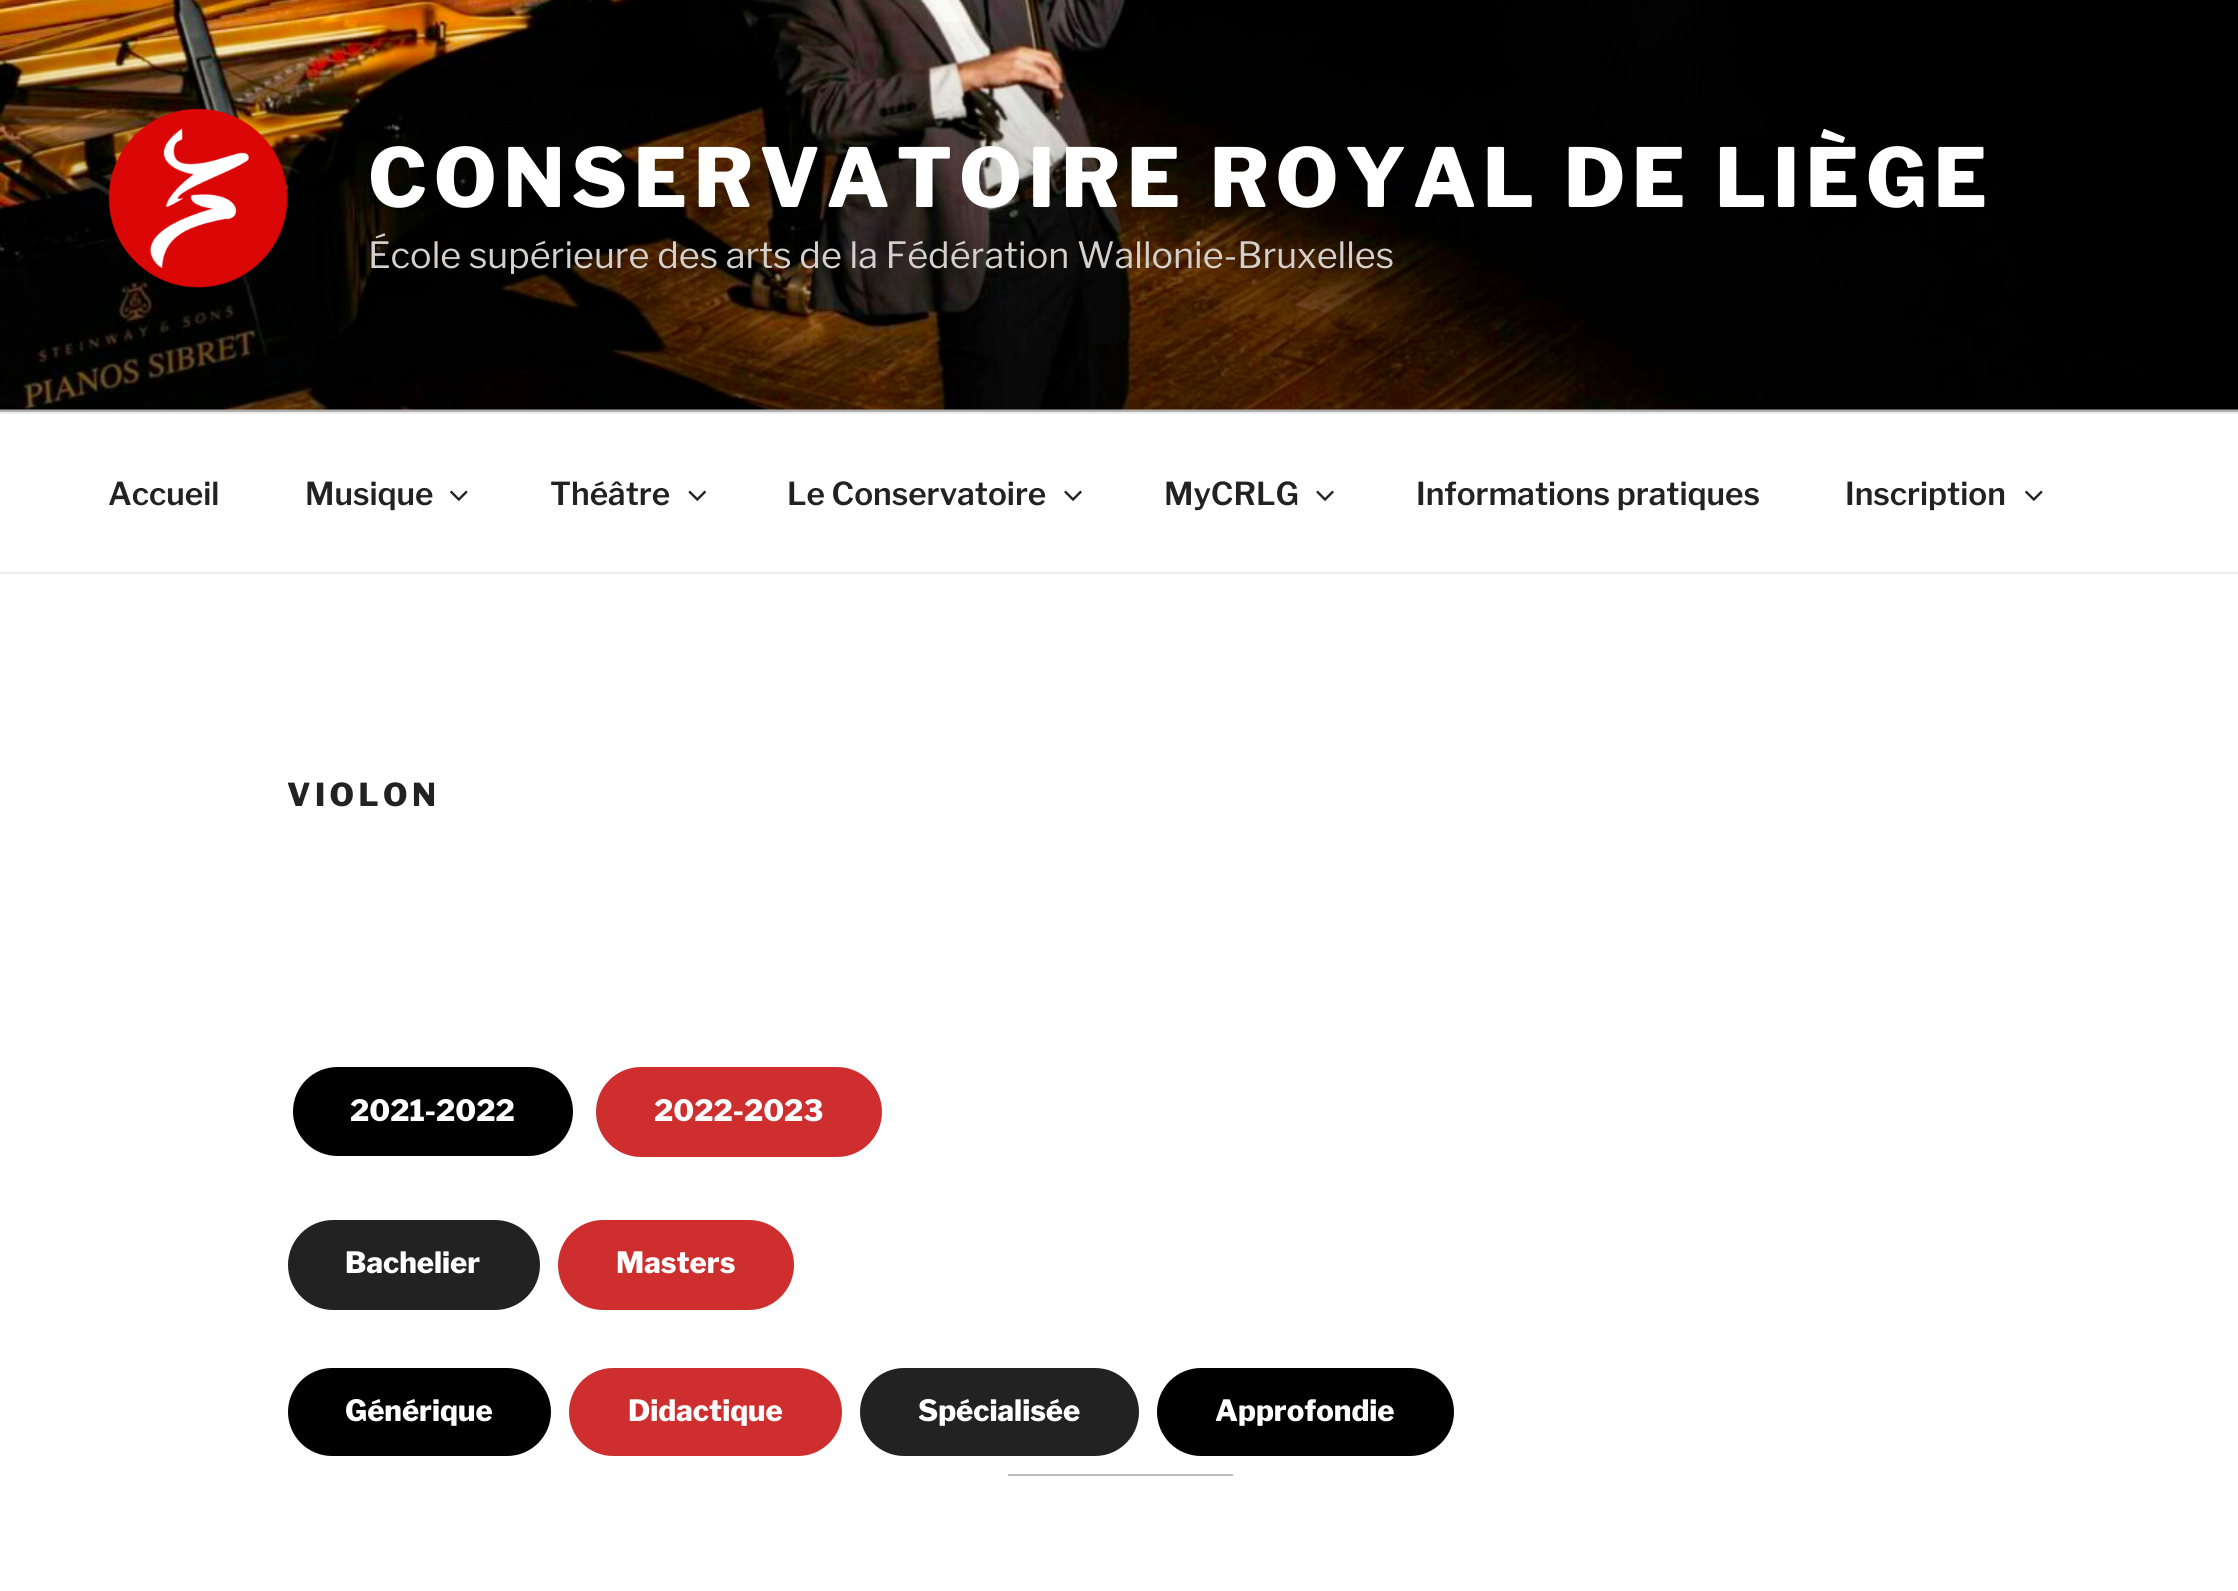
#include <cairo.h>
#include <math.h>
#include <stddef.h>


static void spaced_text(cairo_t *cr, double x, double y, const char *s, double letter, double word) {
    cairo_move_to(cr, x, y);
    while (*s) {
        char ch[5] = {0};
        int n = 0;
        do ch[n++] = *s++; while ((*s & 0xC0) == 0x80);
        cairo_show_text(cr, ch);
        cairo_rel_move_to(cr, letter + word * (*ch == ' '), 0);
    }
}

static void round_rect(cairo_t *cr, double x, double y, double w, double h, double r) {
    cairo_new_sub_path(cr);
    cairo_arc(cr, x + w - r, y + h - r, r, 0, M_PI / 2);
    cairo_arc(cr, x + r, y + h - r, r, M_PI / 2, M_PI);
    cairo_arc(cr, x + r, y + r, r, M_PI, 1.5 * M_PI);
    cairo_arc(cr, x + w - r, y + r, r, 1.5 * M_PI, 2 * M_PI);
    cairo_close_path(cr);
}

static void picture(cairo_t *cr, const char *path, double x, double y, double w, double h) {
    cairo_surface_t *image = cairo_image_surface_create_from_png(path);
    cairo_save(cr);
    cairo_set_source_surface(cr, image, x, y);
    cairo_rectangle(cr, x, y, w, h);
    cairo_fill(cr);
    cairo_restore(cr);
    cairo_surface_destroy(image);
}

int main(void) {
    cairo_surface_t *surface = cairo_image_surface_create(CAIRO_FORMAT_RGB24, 2238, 1591);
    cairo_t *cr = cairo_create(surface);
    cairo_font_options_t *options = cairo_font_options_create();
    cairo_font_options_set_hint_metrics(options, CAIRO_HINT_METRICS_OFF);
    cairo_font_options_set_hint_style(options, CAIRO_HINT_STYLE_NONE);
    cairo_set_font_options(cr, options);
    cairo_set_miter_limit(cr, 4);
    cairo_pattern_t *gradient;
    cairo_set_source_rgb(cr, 1, 1, 1);
    cairo_paint(cr);
    cairo_set_source_rgb(cr, 0.98, 0.98, 0.98);
    cairo_rectangle(cr, 0, 409, 2238, 3);
    cairo_fill(cr);
    picture(cr, "img1.png", 0, 0, 2238, 410);
    gradient = cairo_pattern_create_linear(1119, 0, 1119, 412);
    cairo_pattern_add_color_stop_rgba(gradient, 0, 0, 0, 0, 0);
    cairo_pattern_add_color_stop_rgba(gradient, 0.75, 0, 0, 0, 0.3);
    cairo_pattern_add_color_stop_rgba(gradient, 1, 0, 0, 0, 0.3);
    cairo_set_source(cr, gradient);
    cairo_pattern_destroy(gradient);
    cairo_rectangle(cr, 0, 22, 2238, 390);
    cairo_fill(cr);
    picture(cr, "img2.png", 108, 108, 180, 180);
    cairo_select_font_face(cr, "Libre Franklin ExtraBold", CAIRO_FONT_SLANT_NORMAL, CAIRO_FONT_WEIGHT_NORMAL);
    cairo_set_font_size(cr, 81);
    cairo_set_source_rgb(cr, 1, 1, 1);
    spaced_text(cr, 368, 207, "CONSERVATOIRE ROYAL DE LIÈGE", 6.5, 0);
    cairo_select_font_face(cr, "Libre Franklin", CAIRO_FONT_SLANT_NORMAL, CAIRO_FONT_WEIGHT_NORMAL);
    cairo_set_font_size(cr, 36);
    cairo_set_source_rgb(cr, 0.827, 0.816, 0.804);
    cairo_move_to(cr, 368, 268);
    cairo_show_text(cr, "École supérieure des arts de la Fédération Wallonie-Bruxelles");
    cairo_set_source_rgb(cr, 0.933, 0.933, 0.933);
    cairo_rectangle(cr, 0, 412, 2238, 2);
    cairo_fill(cr);
    cairo_rectangle(cr, 0, 572, 2238, 2);
    cairo_fill(cr);
    cairo_select_font_face(cr, "Libre Franklin SemiBold", CAIRO_FONT_SLANT_NORMAL, CAIRO_FONT_WEIGHT_NORMAL);
    cairo_set_font_size(cr, 31.5);
    cairo_set_source_rgb(cr, 0.133, 0.133, 0.133);
    cairo_move_to(cr, 108, 505);
    cairo_show_text(cr, "Accueil");
    cairo_move_to(cr, 305, 505);
    cairo_show_text(cr, "Musique");
    picture(cr, "img3.png", 450, 490, 18, 11);
    cairo_move_to(cr, 550, 505);
    cairo_show_text(cr, "Théâtre");
    picture(cr, "img4.png", 688, 490, 18, 11);
    cairo_move_to(cr, 787, 505);
    cairo_show_text(cr, "Le Conservatoire");
    picture(cr, "img5.png", 1064, 490, 18, 11);
    cairo_move_to(cr, 1164, 505);
    cairo_show_text(cr, "MyCRLG");
    picture(cr, "img5.png", 1316, 490, 18, 11);
    cairo_move_to(cr, 1416, 505);
    cairo_show_text(cr, "Informations pratiques");
    cairo_move_to(cr, 1845, 505);
    cairo_show_text(cr, "Inscription");
    picture(cr, "img3.png", 2025, 490, 18, 11);
    cairo_select_font_face(cr, "Libre Franklin ExtraBold", CAIRO_FONT_SLANT_NORMAL, CAIRO_FONT_WEIGHT_NORMAL);
    spaced_text(cr, 287, 806, "VIOLON", 4.5, 0);
    cairo_set_source_rgb(cr, 0, 0, 0);
    round_rect(cr, 290.5, 1064.5, 285, 94, 47);
    cairo_fill_preserve(cr);
    cairo_set_source_rgb(cr, 1, 1, 1);
    cairo_set_line_width(cr, 5);
    cairo_stroke(cr);
    cairo_set_font_size(cr, 29.25);
    cairo_move_to(cr, 350, 1121);
    cairo_show_text(cr, "2021-2022");
    cairo_set_source_rgb(cr, 0.812, 0.18, 0.18);
    round_rect(cr, 596, 1067, 286, 90, 45);
    cairo_fill(cr);
    cairo_set_source_rgb(cr, 1, 1, 1);
    cairo_move_to(cr, 654, 1121);
    cairo_show_text(cr, "2022-2023");
    cairo_set_source_rgb(cr, 0.133, 0.133, 0.133);
    round_rect(cr, 288, 1220, 252, 90, 45);
    cairo_fill(cr);
    cairo_set_source_rgb(cr, 1, 1, 1);
    cairo_move_to(cr, 345, 1273);
    cairo_show_text(cr, "Bachelier");
    cairo_set_source_rgb(cr, 0.812, 0.18, 0.18);
    round_rect(cr, 558, 1220, 236, 90, 45);
    cairo_fill(cr);
    cairo_set_source_rgb(cr, 1, 1, 1);
    cairo_move_to(cr, 616, 1273);
    cairo_show_text(cr, "Masters");
    cairo_set_source_rgb(cr, 0, 0, 0);
    round_rect(cr, 288, 1368, 263, 88, 44);
    cairo_fill(cr);
    cairo_set_source_rgb(cr, 1, 1, 1);
    cairo_move_to(cr, 345, 1421);
    cairo_show_text(cr, "Générique");
    cairo_set_source_rgb(cr, 0.812, 0.18, 0.18);
    round_rect(cr, 569, 1368, 273, 88, 44);
    cairo_fill(cr);
    cairo_set_source_rgb(cr, 1, 1, 1);
    cairo_move_to(cr, 628, 1421);
    cairo_show_text(cr, "Didactique");
    cairo_set_source_rgb(cr, 0.133, 0.133, 0.133);
    round_rect(cr, 860, 1368, 279, 88, 44);
    cairo_fill(cr);
    cairo_set_source_rgb(cr, 1, 1, 1);
    cairo_move_to(cr, 918, 1421);
    cairo_show_text(cr, "Spécialisée");
    cairo_set_source_rgb(cr, 0, 0, 0);
    round_rect(cr, 1157, 1368, 297, 88, 44);
    cairo_fill(cr);
    cairo_set_source_rgb(cr, 1, 1, 1);
    cairo_move_to(cr, 1215, 1421);
    cairo_show_text(cr, "Approfondie");
    cairo_set_source_rgb(cr, 0.733, 0.733, 0.733);
    cairo_rectangle(cr, 1008, 1474, 225, 2);
    cairo_fill(cr);
    cairo_surface_write_to_png(surface, "page.png");
    cairo_font_options_destroy(options);
    cairo_destroy(cr);
    cairo_surface_destroy(surface);
    return 0;
}
